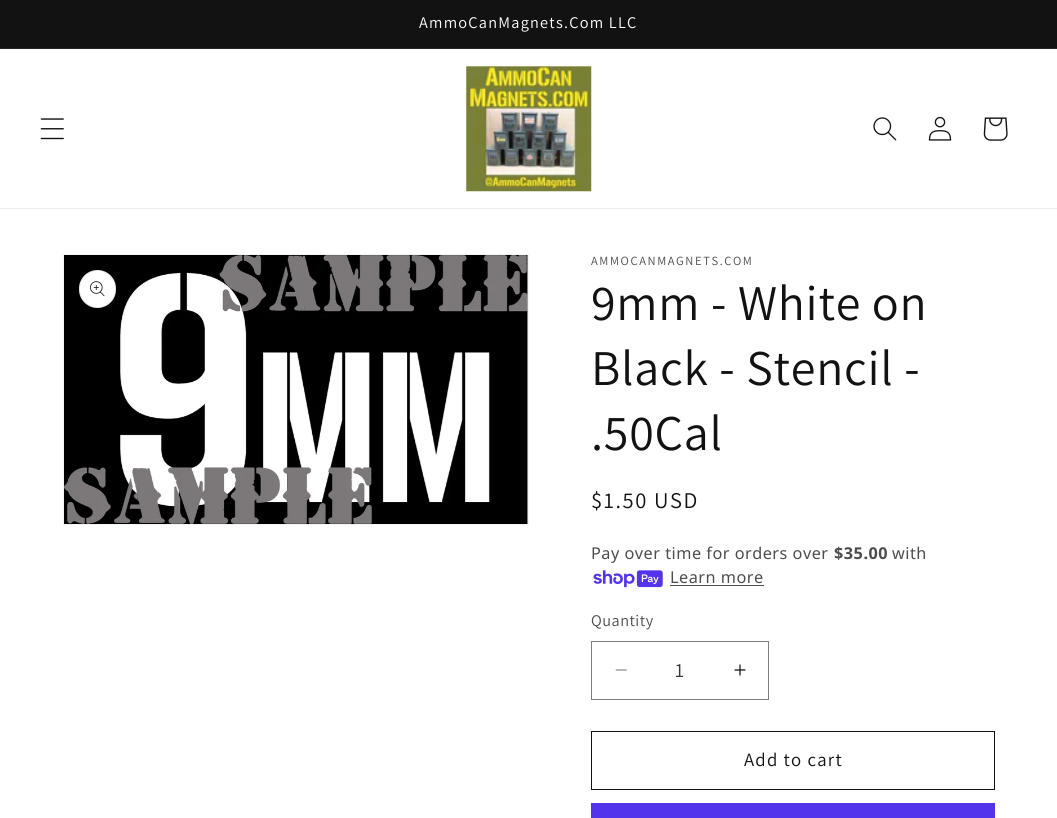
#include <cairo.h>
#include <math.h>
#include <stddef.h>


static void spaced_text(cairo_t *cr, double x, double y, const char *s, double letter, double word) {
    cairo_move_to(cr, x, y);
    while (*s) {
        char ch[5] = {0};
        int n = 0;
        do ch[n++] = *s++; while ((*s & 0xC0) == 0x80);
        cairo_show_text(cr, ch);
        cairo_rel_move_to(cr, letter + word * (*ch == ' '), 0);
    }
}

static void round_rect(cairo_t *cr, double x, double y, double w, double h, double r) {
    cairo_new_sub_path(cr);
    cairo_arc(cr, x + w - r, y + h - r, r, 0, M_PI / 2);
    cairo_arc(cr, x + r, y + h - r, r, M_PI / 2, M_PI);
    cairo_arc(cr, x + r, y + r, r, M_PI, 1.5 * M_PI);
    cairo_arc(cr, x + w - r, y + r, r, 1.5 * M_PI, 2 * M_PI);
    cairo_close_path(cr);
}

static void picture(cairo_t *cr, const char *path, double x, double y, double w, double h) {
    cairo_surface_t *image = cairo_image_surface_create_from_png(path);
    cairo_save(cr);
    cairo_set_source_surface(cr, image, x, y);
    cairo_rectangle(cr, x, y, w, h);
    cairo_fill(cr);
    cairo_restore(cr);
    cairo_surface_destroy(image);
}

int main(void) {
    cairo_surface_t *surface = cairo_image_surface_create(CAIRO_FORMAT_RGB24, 1057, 818);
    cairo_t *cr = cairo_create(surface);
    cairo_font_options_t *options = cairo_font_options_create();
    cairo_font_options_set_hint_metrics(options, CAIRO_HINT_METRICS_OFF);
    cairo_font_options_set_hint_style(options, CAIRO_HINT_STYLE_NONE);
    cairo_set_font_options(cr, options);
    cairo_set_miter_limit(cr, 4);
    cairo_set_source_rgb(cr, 1, 1, 1);
    cairo_paint(cr);
    cairo_set_source_rgb(cr, 0.071, 0.071, 0.071);
    cairo_rectangle(cr, 0, 0, 1057, 48);
    cairo_fill(cr);
    cairo_set_source_rgb(cr, 0.145, 0.145, 0.145);
    cairo_rectangle(cr, 0, 48, 1057, 1);
    cairo_fill(cr);
    cairo_select_font_face(cr, "Assistant", CAIRO_FONT_SLANT_NORMAL, CAIRO_FONT_WEIGHT_NORMAL);
    cairo_set_font_size(cr, 16.25);
    cairo_set_source_rgb(cr, 1, 1, 1);
    spaced_text(cr, 419, 28, "AmmoCanMagnets.Com LLC", 1.25, 0);
    cairo_set_source_rgb(cr, 0.925, 0.925, 0.925);
    cairo_rectangle(cr, 0, 208, 1057, 1);
    cairo_fill(cr);
    picture(cr, "img1.png", 40, 118, 24, 22);
    picture(cr, "img2.png", 466, 66, 126, 126);
    picture(cr, "img3.png", 873, 117, 24, 24);
    picture(cr, "img4.png", 928, 116, 24, 25);
    picture(cr, "img5.png", 983, 117, 25, 24);
    cairo_rectangle(cr, 63.5, 254.5, 465, 270);
    cairo_set_source_rgb(cr, 0.953, 0.953, 0.953);
    cairo_set_line_width(cr, 1);
    cairo_stroke(cr);
    picture(cr, "img6.png", 64, 255, 464, 269);
    cairo_set_source_rgb(cr, 1, 1, 1);
    round_rect(cr, 79, 270, 37, 38, 18.5);
    cairo_fill(cr);
    round_rect(cr, 79.5, 270.5, 36, 37, 18);
    cairo_set_source_rgba(cr, 0.071, 0.071, 0.071, 0.1);
    cairo_stroke(cr);
    picture(cr, "img7.png", 90, 281, 15, 16);
    cairo_set_font_size(cr, 12.5);
    cairo_set_source_rgb(cr, 0.302, 0.302, 0.302);
    spaced_text(cr, 591, 265, "AMMOCANMAGNETS.COM", 1.6, 0);
    cairo_set_font_size(cr, 50);
    cairo_set_source_rgb(cr, 0.071, 0.071, 0.071);
    spaced_text(cr, 591, 320, "9mm - White on", 0.75, 0);
    spaced_text(cr, 591, 385, "Black - Stencil -", 0.75, 0);
    spaced_text(cr, 591, 450, ".50Cal", 0.75, 0);
    cairo_set_font_size(cr, 22.5);
    spaced_text(cr, 591, 508, "$1.50 USD", 1.6, 0);
    cairo_select_font_face(cr, "Noto Sans", CAIRO_FONT_SLANT_NORMAL, CAIRO_FONT_WEIGHT_NORMAL);
    cairo_set_font_size(cr, 16.25);
    cairo_set_source_rgb(cr, 0.302, 0.302, 0.302);
    spaced_text(cr, 591, 559, "Pay over time for orders over", 0.5, 0);
    cairo_select_font_face(cr, "Noto Sans", CAIRO_FONT_SLANT_NORMAL, CAIRO_FONT_WEIGHT_BOLD);
    spaced_text(cr, 834, 559, "$35.00", 0.5, 0);
    cairo_select_font_face(cr, "Noto Sans", CAIRO_FONT_SLANT_NORMAL, CAIRO_FONT_WEIGHT_NORMAL);
    spaced_text(cr, 892, 559, "with", 0.5, 0);
    picture(cr, "img8.png", 593, 570, 70, 18);
    spaced_text(cr, 670, 583, "Learn more", 0.5, 0);
    cairo_rectangle(cr, 670, 585, 94, 1);
    cairo_fill(cr);
    cairo_select_font_face(cr, "Assistant", CAIRO_FONT_SLANT_NORMAL, CAIRO_FONT_WEIGHT_NORMAL);
    spaced_text(cr, 591, 626, "Quantity", 0.5, 0);
    picture(cr, "img9.png", 615, 669, 12, 2);
    picture(cr, "img10.png", 734, 664, 12, 12);
    cairo_rectangle(cr, 591.5, 641.5, 177, 58);
    cairo_set_source_rgb(cr, 0.49, 0.49, 0.49);
    cairo_stroke(cr);
    cairo_set_font_size(cr, 20);
    cairo_set_source_rgb(cr, 0.212, 0.212, 0.212);
    cairo_move_to(cr, 675, 677);
    cairo_show_text(cr, "1");
    cairo_rectangle(cr, 591.5, 731.5, 403, 58);
    cairo_set_source_rgb(cr, 0.071, 0.071, 0.071);
    cairo_stroke(cr);
    cairo_set_font_size(cr, 18.75);
    spaced_text(cr, 744, 766, "Add to cart", 1.25, 0);
    cairo_set_source_rgb(cr, 0.329, 0.2, 0.922);
    cairo_rectangle(cr, 591, 803, 404, 15);
    cairo_fill(cr);
    cairo_surface_write_to_png(surface, "page.png");
    cairo_font_options_destroy(options);
    cairo_destroy(cr);
    cairo_surface_destroy(surface);
    return 0;
}
